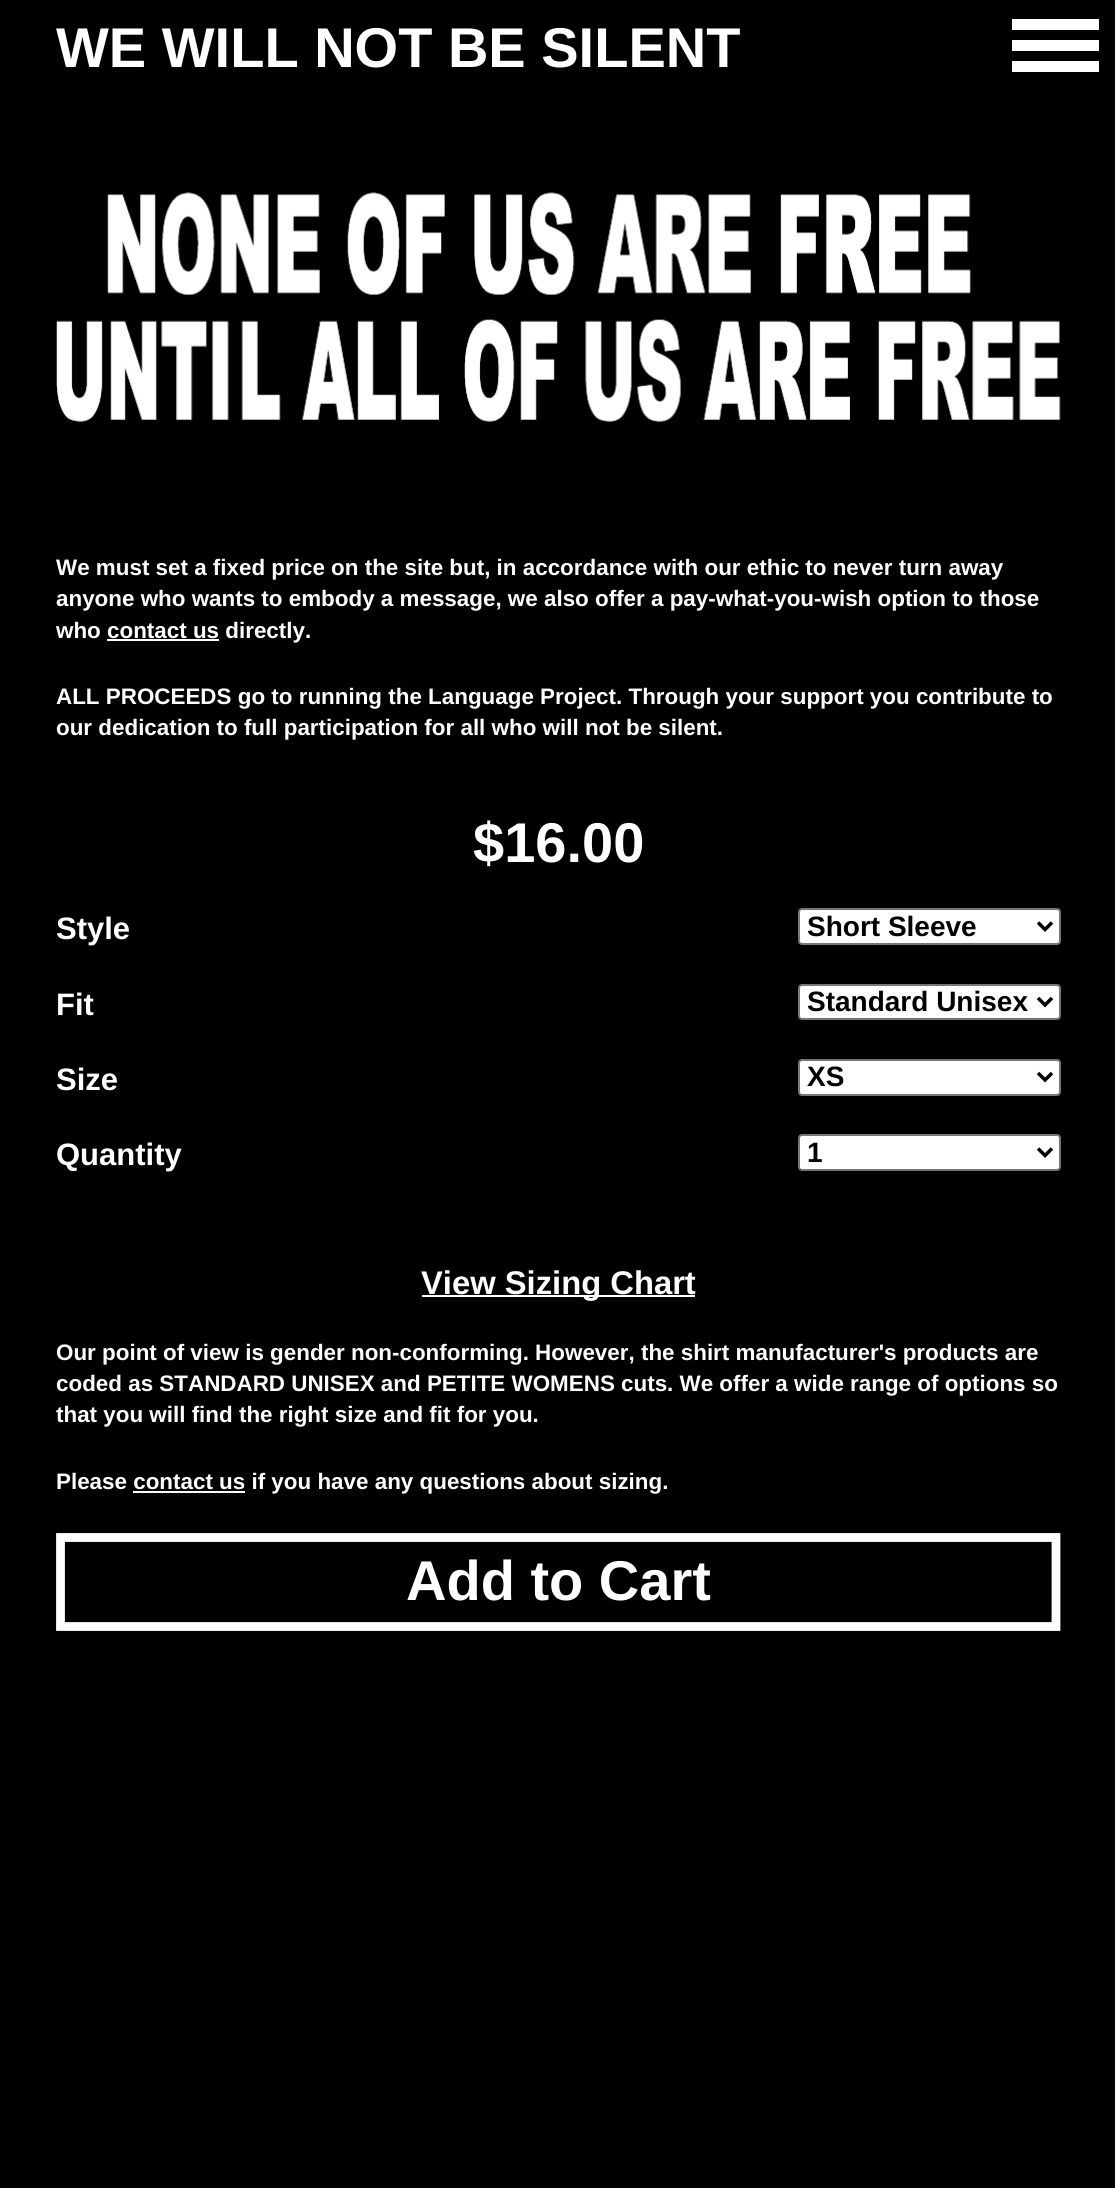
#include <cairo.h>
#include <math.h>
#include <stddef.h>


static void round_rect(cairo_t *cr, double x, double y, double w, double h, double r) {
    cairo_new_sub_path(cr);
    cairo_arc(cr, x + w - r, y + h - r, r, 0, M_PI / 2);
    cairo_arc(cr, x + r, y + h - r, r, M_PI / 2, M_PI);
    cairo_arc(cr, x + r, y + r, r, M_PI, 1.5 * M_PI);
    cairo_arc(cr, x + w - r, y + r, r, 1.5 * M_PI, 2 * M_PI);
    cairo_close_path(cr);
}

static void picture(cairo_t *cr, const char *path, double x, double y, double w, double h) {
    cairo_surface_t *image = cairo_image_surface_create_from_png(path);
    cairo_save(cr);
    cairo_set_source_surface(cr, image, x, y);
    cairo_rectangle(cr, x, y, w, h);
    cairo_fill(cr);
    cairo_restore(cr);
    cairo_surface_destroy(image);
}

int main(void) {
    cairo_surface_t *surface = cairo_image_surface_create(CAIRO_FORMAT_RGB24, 1115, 2188);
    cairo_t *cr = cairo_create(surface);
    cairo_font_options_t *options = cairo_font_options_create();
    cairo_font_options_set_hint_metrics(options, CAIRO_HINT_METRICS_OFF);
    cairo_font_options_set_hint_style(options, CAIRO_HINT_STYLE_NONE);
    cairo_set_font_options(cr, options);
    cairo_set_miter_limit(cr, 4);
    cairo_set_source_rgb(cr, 0, 0, 0);
    cairo_paint(cr);
    cairo_select_font_face(cr, "Liberation Sans", CAIRO_FONT_SLANT_NORMAL, CAIRO_FONT_WEIGHT_BOLD);
    cairo_set_font_size(cr, 56);
    cairo_set_source_rgb(cr, 1, 1, 1);
    cairo_move_to(cr, 56, 67);
    cairo_show_text(cr, "WE WILL NOT BE SILENT");
    cairo_rectangle(cr, 1012, 19, 87, 11);
    cairo_fill(cr);
    cairo_rectangle(cr, 1012, 40, 87, 11);
    cairo_fill(cr);
    cairo_rectangle(cr, 1012, 61, 87, 11);
    cairo_fill(cr);
    picture(cr, "img1.png", 56, 192, 1005, 230);
    cairo_set_font_size(cr, 22.4);
    cairo_move_to(cr, 56, 575);
    cairo_show_text(cr, "We must set a fixed price on the site but, in accordance with our ethic to never turn away");
    cairo_move_to(cr, 56, 606);
    cairo_show_text(cr, "anyone who wants to embody a message, we also offer a pay-what-you-wish option to those");
    cairo_move_to(cr, 56, 638);
    cairo_show_text(cr, "who contact us directly.");
    cairo_rectangle(cr, 107, 639, 112, 2);
    cairo_fill(cr);
    cairo_move_to(cr, 56, 704);
    cairo_show_text(cr, "ALL PROCEEDS go to running the Language Project. Through your support you contribute to");
    cairo_move_to(cr, 56, 735);
    cairo_show_text(cr, "our dedication to full participation for all who will not be silent.");
    cairo_set_font_size(cr, 56);
    cairo_move_to(cr, 473, 862);
    cairo_show_text(cr, "$16.00");
    cairo_set_font_size(cr, 31);
    cairo_move_to(cr, 56, 939);
    cairo_show_text(cr, "Style");
    round_rect(cr, 799, 909, 261, 35, 3);
    cairo_fill_preserve(cr);
    cairo_set_source_rgb(cr, 0.463, 0.463, 0.463);
    cairo_stroke(cr);
    cairo_new_path(cr);
    cairo_move_to(cr, 1038, 922.5);
    cairo_line_to(cr, 1045, 929.5);
    cairo_line_to(cr, 1052, 922.5);
    cairo_set_source_rgb(cr, 0, 0, 0);
    cairo_set_line_width(cr, 3.5);
    cairo_stroke(cr);
    cairo_set_font_size(cr, 28);
    cairo_move_to(cr, 807, 936);
    cairo_show_text(cr, "Short Sleeve");
    cairo_set_font_size(cr, 31);
    cairo_set_source_rgb(cr, 1, 1, 1);
    cairo_move_to(cr, 56, 1015);
    cairo_show_text(cr, "Fit");
    round_rect(cr, 799, 985, 261, 34, 3);
    cairo_fill_preserve(cr);
    cairo_set_source_rgb(cr, 0.463, 0.463, 0.463);
    cairo_set_line_width(cr, 2);
    cairo_stroke(cr);
    cairo_new_path(cr);
    cairo_move_to(cr, 1038, 998);
    cairo_line_to(cr, 1045, 1005);
    cairo_line_to(cr, 1052, 998);
    cairo_set_source_rgb(cr, 0, 0, 0);
    cairo_set_line_width(cr, 3.5);
    cairo_stroke(cr);
    cairo_set_font_size(cr, 28);
    cairo_move_to(cr, 807, 1011);
    cairo_show_text(cr, "Standard Unisex");
    cairo_set_font_size(cr, 31);
    cairo_set_source_rgb(cr, 1, 1, 1);
    cairo_move_to(cr, 56, 1090);
    cairo_show_text(cr, "Size");
    round_rect(cr, 799, 1060, 261, 35, 3);
    cairo_fill_preserve(cr);
    cairo_set_source_rgb(cr, 0.463, 0.463, 0.463);
    cairo_set_line_width(cr, 2);
    cairo_stroke(cr);
    cairo_new_path(cr);
    cairo_move_to(cr, 1038, 1073);
    cairo_line_to(cr, 1045, 1080);
    cairo_line_to(cr, 1052, 1073);
    cairo_set_source_rgb(cr, 0, 0, 0);
    cairo_set_line_width(cr, 3.5);
    cairo_stroke(cr);
    cairo_set_font_size(cr, 28);
    cairo_move_to(cr, 807, 1086);
    cairo_show_text(cr, "XS");
    cairo_set_font_size(cr, 31);
    cairo_set_source_rgb(cr, 1, 1, 1);
    cairo_move_to(cr, 56, 1165);
    cairo_show_text(cr, "Quantity");
    round_rect(cr, 799, 1135, 261, 35, 3);
    cairo_fill_preserve(cr);
    cairo_set_source_rgb(cr, 0.463, 0.463, 0.463);
    cairo_set_line_width(cr, 2);
    cairo_stroke(cr);
    cairo_new_path(cr);
    cairo_move_to(cr, 1038, 1148.5);
    cairo_line_to(cr, 1045, 1155.5);
    cairo_line_to(cr, 1052, 1148.5);
    cairo_set_source_rgb(cr, 0, 0, 0);
    cairo_set_line_width(cr, 3.5);
    cairo_stroke(cr);
    cairo_set_font_size(cr, 28);
    cairo_move_to(cr, 807, 1162);
    cairo_show_text(cr, "1");
    cairo_set_source_rgb(cr, 1, 1, 1);
    cairo_rectangle(cr, 422, 1295, 273, 2);
    cairo_fill(cr);
    cairo_set_font_size(cr, 32.75);
    cairo_move_to(cr, 421, 1294);
    cairo_show_text(cr, "View Sizing Chart");
    cairo_set_font_size(cr, 22.4);
    cairo_move_to(cr, 56, 1360);
    cairo_show_text(cr, "Our point of view is gender non-conforming. However, the shirt manufacturer's products are");
    cairo_move_to(cr, 56, 1391);
    cairo_show_text(cr, "coded as STANDARD UNISEX and PETITE WOMENS cuts. We offer a wide range of options so");
    cairo_move_to(cr, 56, 1422);
    cairo_show_text(cr, "that you will find the right size and fit for you.");
    cairo_move_to(cr, 56, 1489);
    cairo_show_text(cr, "Please contact us if you have any questions about sizing.");
    cairo_rectangle(cr, 133, 1491, 112, 2);
    cairo_fill(cr);
    cairo_new_path(cr);
    cairo_move_to(cr, 60.5, 1537.5);
    cairo_line_to(cr, 1056, 1537.5);
    cairo_line_to(cr, 1056, 1626.5);
    cairo_line_to(cr, 60.5, 1626.5);
    cairo_close_path(cr);
    cairo_set_line_width(cr, 8.8);
    cairo_stroke(cr);
    cairo_set_font_size(cr, 56);
    cairo_move_to(cr, 406, 1600);
    cairo_show_text(cr, "Add to Cart");
    cairo_surface_write_to_png(surface, "page.png");
    cairo_font_options_destroy(options);
    cairo_destroy(cr);
    cairo_surface_destroy(surface);
    return 0;
}
